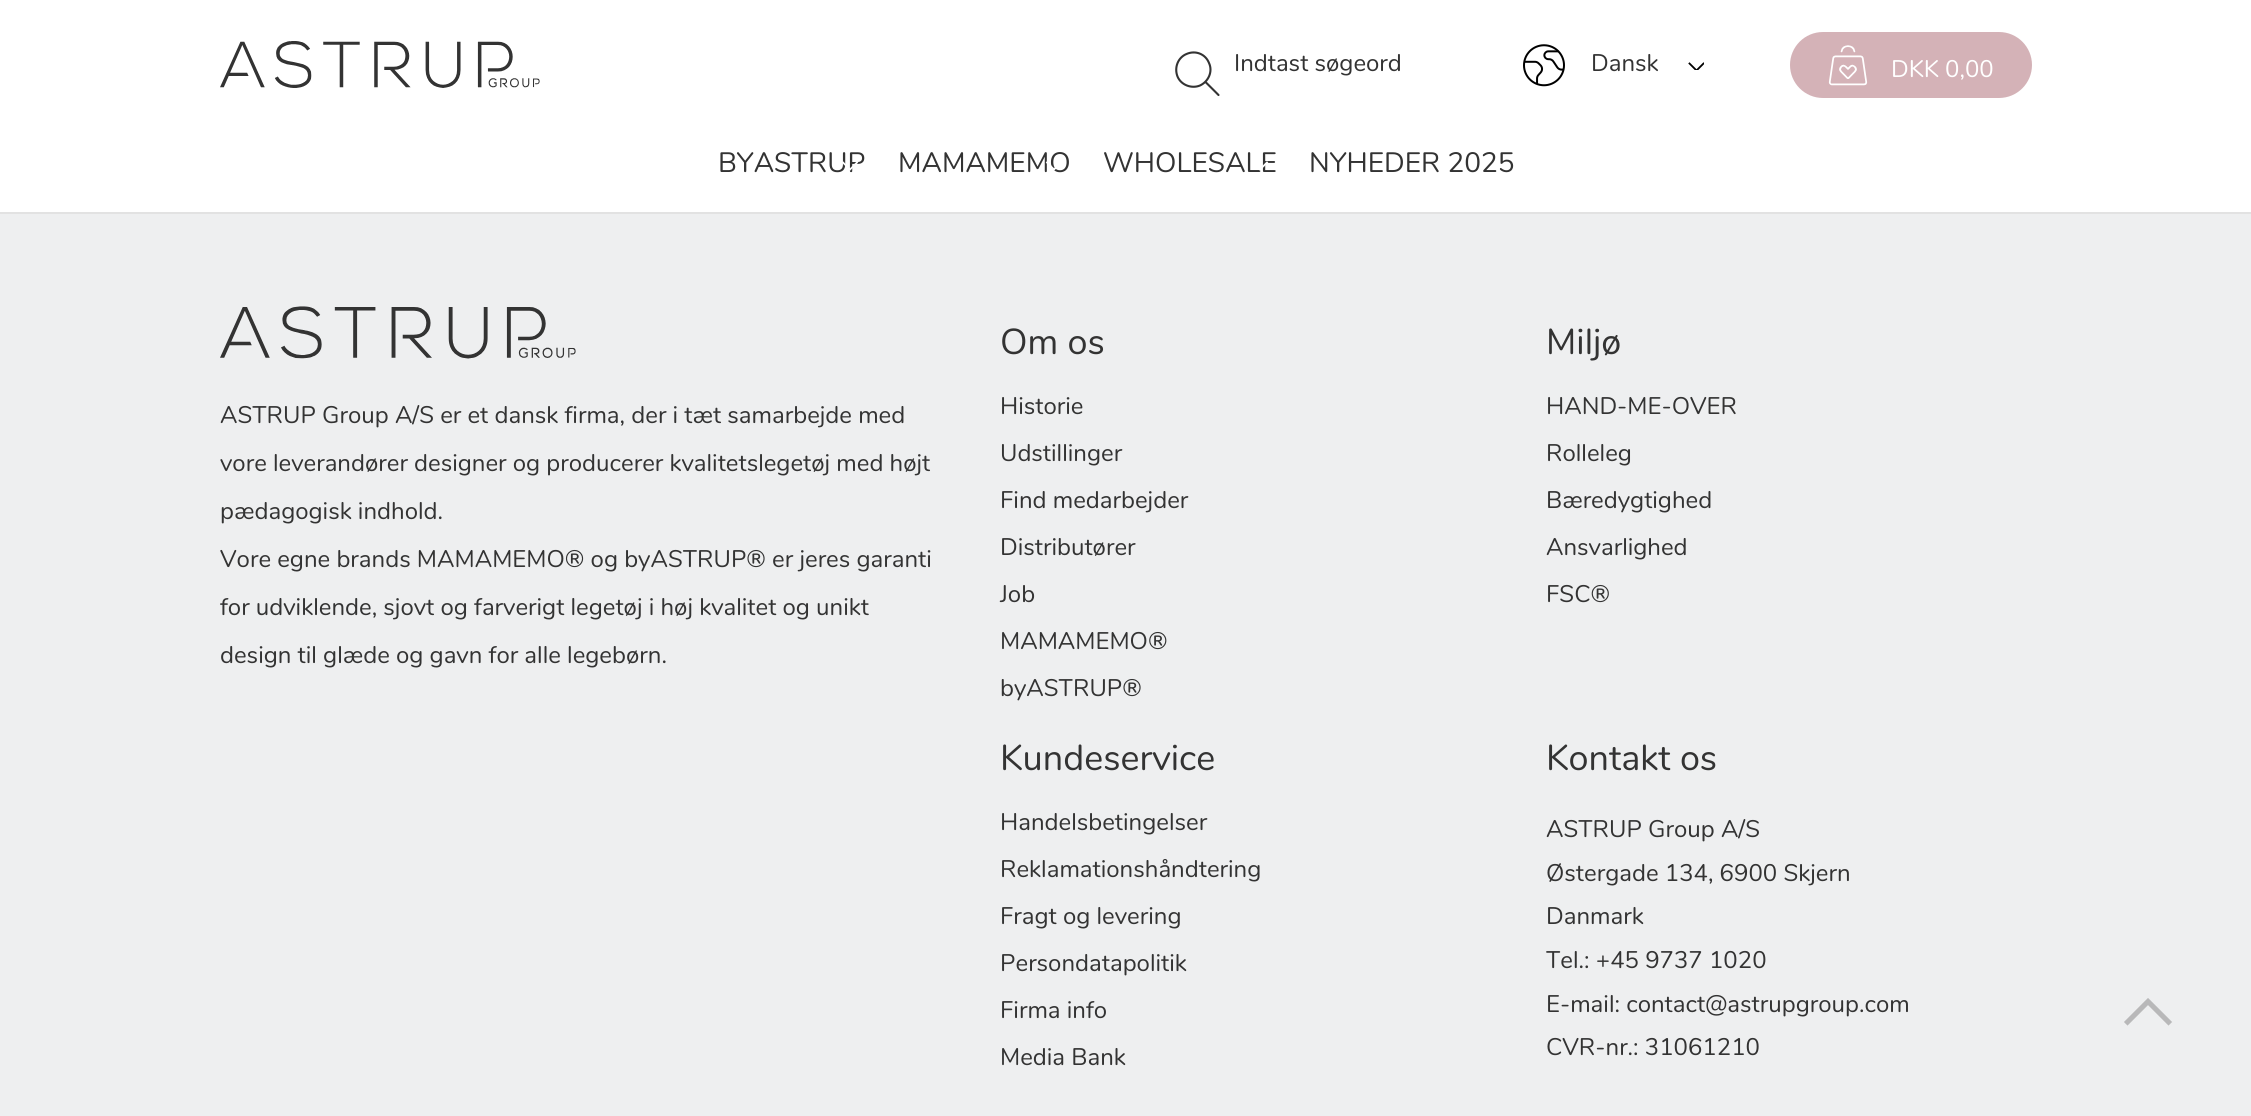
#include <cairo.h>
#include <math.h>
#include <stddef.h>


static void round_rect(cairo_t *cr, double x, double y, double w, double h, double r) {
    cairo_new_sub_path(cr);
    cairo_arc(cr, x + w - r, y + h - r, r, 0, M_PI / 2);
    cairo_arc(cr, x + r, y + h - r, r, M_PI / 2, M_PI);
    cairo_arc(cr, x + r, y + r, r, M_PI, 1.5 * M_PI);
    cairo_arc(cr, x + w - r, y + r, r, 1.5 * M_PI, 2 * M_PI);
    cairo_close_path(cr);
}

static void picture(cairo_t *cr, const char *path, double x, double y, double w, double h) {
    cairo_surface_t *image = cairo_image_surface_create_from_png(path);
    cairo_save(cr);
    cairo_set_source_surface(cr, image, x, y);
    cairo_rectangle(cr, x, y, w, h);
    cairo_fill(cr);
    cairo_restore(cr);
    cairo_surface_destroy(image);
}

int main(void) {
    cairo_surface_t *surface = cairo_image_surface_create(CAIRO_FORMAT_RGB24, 2251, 1116);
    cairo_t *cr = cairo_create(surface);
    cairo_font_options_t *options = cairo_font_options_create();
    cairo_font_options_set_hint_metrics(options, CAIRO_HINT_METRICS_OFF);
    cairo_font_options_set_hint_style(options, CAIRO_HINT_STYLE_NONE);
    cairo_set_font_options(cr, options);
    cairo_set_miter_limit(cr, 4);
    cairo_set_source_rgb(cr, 0.933, 0.937, 0.941);
    cairo_paint(cr);
    cairo_set_source_rgb(cr, 1, 1, 1);
    cairo_rectangle(cr, 0, 0, 2251, 212);
    cairo_fill(cr);
    picture(cr, "img1.png", 220, 41, 320, 47);
    cairo_new_path(cr);
    cairo_move_to(cr, 1186.5, 54);
    cairo_curve_to(cr, 1195.5, 50, 1205.5, 54, 1209, 63);
    cairo_curve_to(cr, 1213, 71.5, 1208.5, 81.5, 1200, 85.5);
    cairo_curve_to(cr, 1191.5, 89, 1181, 85, 1177.5, 76.5);
    cairo_curve_to(cr, 1174, 67.5, 1178, 57.5, 1186.5, 54);
    cairo_close_path(cr);
    cairo_move_to(cr, 1205.5, 82);
    cairo_line_to(cr, 1218.5, 95);
    cairo_set_source_rgb(cr, 0.2, 0.2, 0.2);
    cairo_set_line_width(cr, 2.1);
    cairo_set_line_cap(cr, CAIRO_LINE_CAP_ROUND);
    cairo_set_line_join(cr, CAIRO_LINE_JOIN_ROUND);
    cairo_stroke(cr);
    cairo_select_font_face(cr, "Nunito", CAIRO_FONT_SLANT_NORMAL, CAIRO_FONT_WEIGHT_NORMAL);
    cairo_set_font_size(cr, 24);
    cairo_move_to(cr, 1234, 71);
    cairo_show_text(cr, "Indtast søgeord");
    picture(cr, "img2.png", 1523, 44, 42, 43);
    cairo_save(cr);
    cairo_rectangle(cr, 1688, 62, 16, 8);
    cairo_clip(cr);
    cairo_new_path(cr);
    cairo_move_to(cr, 1703.5, 63.5);
    cairo_line_to(cr, 1696.5, 70.5);
    cairo_line_to(cr, 1689.5, 63.5);
    cairo_set_source_rgb(cr, 0, 0, 0);
    cairo_set_line_width(cr, 1.8);
    cairo_set_line_cap(cr, CAIRO_LINE_CAP_SQUARE);
    cairo_set_line_join(cr, CAIRO_LINE_JOIN_MITER);
    cairo_stroke(cr);
    cairo_restore(cr);
    cairo_move_to(cr, 1591, 71);
    cairo_show_text(cr, "Dansk");
    cairo_set_source_rgb(cr, 0.831, 0.698, 0.718);
    round_rect(cr, 1790, 32, 242, 66, 33);
    cairo_fill(cr);
    picture(cr, "img3.png", 1828, 45, 40, 41);
    cairo_set_source_rgb(cr, 1, 1, 1);
    cairo_move_to(cr, 1891, 77);
    cairo_show_text(cr, "DKK 0,00");
    cairo_set_source_rgb(cr, 0.886, 0.886, 0.886);
    cairo_rectangle(cr, 0, 212, 2251, 2);
    cairo_fill(cr);
    cairo_set_font_size(cr, 28);
    cairo_set_source_rgb(cr, 0.2, 0.2, 0.2);
    cairo_move_to(cr, 718, 172);
    cairo_show_text(cr, "BYASTRUP");
    cairo_new_path(cr);
    cairo_move_to(cr, 857, 162.5);
    cairo_line_to(cr, 850, 169.5);
    cairo_line_to(cr, 843, 162.5);
    cairo_set_source_rgb(cr, 1, 1, 1);
    cairo_set_line_width(cr, 1.8);
    cairo_set_line_cap(cr, CAIRO_LINE_CAP_SQUARE);
    cairo_set_line_join(cr, CAIRO_LINE_JOIN_MITER);
    cairo_stroke(cr);
    cairo_set_source_rgb(cr, 0.2, 0.2, 0.2);
    cairo_move_to(cr, 898, 172);
    cairo_show_text(cr, "MAMAMEMO");
    cairo_new_path(cr);
    cairo_move_to(cr, 1061, 162.5);
    cairo_line_to(cr, 1054, 169.5);
    cairo_line_to(cr, 1047, 162.5);
    cairo_set_source_rgb(cr, 1, 1, 1);
    cairo_stroke(cr);
    cairo_set_source_rgb(cr, 0.2, 0.2, 0.2);
    cairo_move_to(cr, 1103, 172);
    cairo_show_text(cr, "WHOLESALE");
    cairo_new_path(cr);
    cairo_move_to(cr, 1267, 162.5);
    cairo_line_to(cr, 1260, 169.5);
    cairo_line_to(cr, 1253, 162.5);
    cairo_set_source_rgb(cr, 1, 1, 1);
    cairo_stroke(cr);
    cairo_set_source_rgb(cr, 0.2, 0.2, 0.2);
    cairo_move_to(cr, 1309, 172);
    cairo_show_text(cr, "NYHEDER 2025");
    picture(cr, "img4.png", 220, 306, 356, 53);
    cairo_set_font_size(cr, 24);
    cairo_move_to(cr, 220, 423);
    cairo_show_text(cr, "ASTRUP Group A/S er et dansk firma, der i tæt samarbejde med");
    cairo_move_to(cr, 220, 471);
    cairo_show_text(cr, "vore leverandører designer og producerer kvalitetslegetøj med højt");
    cairo_move_to(cr, 220, 519);
    cairo_show_text(cr, "pædagogisk indhold.");
    cairo_move_to(cr, 220, 567);
    cairo_show_text(cr, "Vore egne brands MAMAMEMO® og byASTRUP® er jeres garanti");
    cairo_move_to(cr, 220, 615);
    cairo_show_text(cr, "for udviklende, sjovt og farverigt legetøj i høj kvalitet og unikt");
    cairo_move_to(cr, 220, 663);
    cairo_show_text(cr, "design til glæde og gavn for alle legebørn.");
    cairo_set_font_size(cr, 36);
    cairo_move_to(cr, 1000, 354);
    cairo_show_text(cr, "Om os");
    cairo_set_font_size(cr, 24);
    cairo_move_to(cr, 1000, 414);
    cairo_show_text(cr, "Historie");
    cairo_move_to(cr, 1000, 461);
    cairo_show_text(cr, "Udstillinger");
    cairo_move_to(cr, 1000, 508);
    cairo_show_text(cr, "Find medarbejder");
    cairo_move_to(cr, 1000, 555);
    cairo_show_text(cr, "Distributører");
    cairo_move_to(cr, 1000, 602);
    cairo_show_text(cr, "Job");
    cairo_move_to(cr, 1000, 649);
    cairo_show_text(cr, "MAMAMEMO®");
    cairo_move_to(cr, 1000, 696);
    cairo_show_text(cr, "byASTRUP®");
    cairo_set_font_size(cr, 36);
    cairo_move_to(cr, 1546, 354);
    cairo_show_text(cr, "Miljø");
    cairo_set_font_size(cr, 24);
    cairo_move_to(cr, 1546, 414);
    cairo_show_text(cr, "HAND-ME-OVER");
    cairo_move_to(cr, 1546, 461);
    cairo_show_text(cr, "Rolleleg");
    cairo_move_to(cr, 1546, 508);
    cairo_show_text(cr, "Bæredygtighed");
    cairo_move_to(cr, 1546, 555);
    cairo_show_text(cr, "Ansvarlighed");
    cairo_move_to(cr, 1546, 602);
    cairo_show_text(cr, "FSC®");
    cairo_set_font_size(cr, 36);
    cairo_move_to(cr, 1000, 770);
    cairo_show_text(cr, "Kundeservice");
    cairo_set_font_size(cr, 24);
    cairo_move_to(cr, 1000, 830);
    cairo_show_text(cr, "Handelsbetingelser");
    cairo_move_to(cr, 1000, 877);
    cairo_show_text(cr, "Reklamationshåndtering");
    cairo_move_to(cr, 1000, 924);
    cairo_show_text(cr, "Fragt og levering");
    cairo_move_to(cr, 1000, 971);
    cairo_show_text(cr, "Persondatapolitik");
    cairo_move_to(cr, 1000, 1018);
    cairo_show_text(cr, "Firma info");
    cairo_move_to(cr, 1000, 1065);
    cairo_show_text(cr, "Media Bank");
    cairo_set_font_size(cr, 36);
    cairo_move_to(cr, 1546, 770);
    cairo_show_text(cr, "Kontakt os");
    cairo_set_font_size(cr, 24);
    cairo_move_to(cr, 1546, 837);
    cairo_show_text(cr, "ASTRUP Group A/S");
    cairo_move_to(cr, 1546, 881);
    cairo_show_text(cr, "Østergade 134, 6900 Skjern");
    cairo_move_to(cr, 1546, 924);
    cairo_show_text(cr, "Danmark");
    cairo_move_to(cr, 1546, 968);
    cairo_show_text(cr, "Tel.: +45 9737 1020");
    cairo_move_to(cr, 1546, 1012);
    cairo_show_text(cr, "E-mail: contact@astrupgroup.com");
    cairo_move_to(cr, 1546, 1055);
    cairo_show_text(cr, "CVR-nr.: 31061210");
    cairo_new_path(cr);
    cairo_move_to(cr, 2127.5, 1022);
    cairo_line_to(cr, 2148, 1001.5);
    cairo_line_to(cr, 2168.5, 1022);
    cairo_set_source_rgb(cr, 0.722, 0.722, 0.725);
    cairo_set_line_width(cr, 5.1);
    cairo_stroke(cr);
    cairo_surface_write_to_png(surface, "page.png");
    cairo_font_options_destroy(options);
    cairo_destroy(cr);
    cairo_surface_destroy(surface);
    return 0;
}
